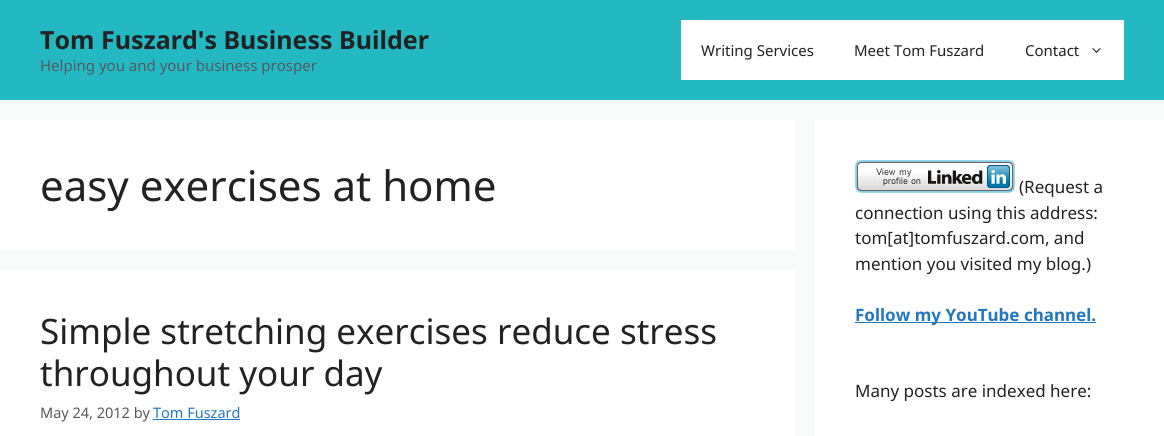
#include <cairo.h>
#include <math.h>
#include <stddef.h>


static void picture(cairo_t *cr, const char *path, double x, double y, double w, double h) {
    cairo_surface_t *image = cairo_image_surface_create_from_png(path);
    cairo_save(cr);
    cairo_set_source_surface(cr, image, x, y);
    cairo_rectangle(cr, x, y, w, h);
    cairo_fill(cr);
    cairo_restore(cr);
    cairo_surface_destroy(image);
}

int main(void) {
    cairo_surface_t *surface = cairo_image_surface_create(CAIRO_FORMAT_RGB24, 1164, 436);
    cairo_t *cr = cairo_create(surface);
    cairo_font_options_t *options = cairo_font_options_create();
    cairo_font_options_set_hint_metrics(options, CAIRO_HINT_METRICS_OFF);
    cairo_font_options_set_hint_style(options, CAIRO_HINT_STYLE_NONE);
    cairo_set_font_options(cr, options);
    cairo_set_miter_limit(cr, 4);
    cairo_set_source_rgb(cr, 0.969, 0.973, 0.976);
    cairo_paint(cr);
    cairo_set_source_rgb(cr, 0.137, 0.725, 0.761);
    cairo_rectangle(cr, 0, 0, 1164, 100);
    cairo_fill(cr);
    cairo_select_font_face(cr, "Noto Sans", CAIRO_FONT_SLANT_NORMAL, CAIRO_FONT_WEIGHT_BOLD);
    cairo_set_font_size(cr, 25);
    cairo_set_source_rgb(cr, 0.133, 0.133, 0.133);
    cairo_move_to(cr, 40, 49);
    cairo_show_text(cr, "Tom Fuszard's Business Builder");
    cairo_select_font_face(cr, "Noto Sans", CAIRO_FONT_SLANT_NORMAL, CAIRO_FONT_WEIGHT_NORMAL);
    cairo_set_font_size(cr, 15);
    cairo_set_source_rgb(cr, 0.341, 0.341, 0.376);
    cairo_move_to(cr, 40, 71);
    cairo_show_text(cr, "Helping you and your business prosper");
    cairo_set_source_rgb(cr, 1, 1, 1);
    cairo_rectangle(cr, 681, 20, 443, 60);
    cairo_fill(cr);
    cairo_set_source_rgb(cr, 0.133, 0.133, 0.133);
    cairo_move_to(cr, 701, 56);
    cairo_show_text(cr, "Writing Services");
    cairo_move_to(cr, 854, 56);
    cairo_show_text(cr, "Meet Tom Fuszard");
    cairo_move_to(cr, 1025, 56);
    cairo_show_text(cr, "Contact");
    picture(cr, "img1.png", 1092, 48, 9, 5);
    cairo_set_source_rgb(cr, 1, 1, 1);
    cairo_rectangle(cr, 0, 120, 795, 130);
    cairo_fill(cr);
    cairo_set_font_size(cr, 42);
    cairo_set_source_rgb(cr, 0.133, 0.133, 0.133);
    cairo_move_to(cr, 40, 201);
    cairo_show_text(cr, "easy exercises at home");
    cairo_set_source_rgb(cr, 1, 1, 1);
    cairo_rectangle(cr, 0, 270, 795, 166);
    cairo_fill(cr);
    cairo_set_font_size(cr, 35);
    cairo_set_source_rgb(cr, 0.133, 0.133, 0.133);
    cairo_move_to(cr, 40, 344);
    cairo_show_text(cr, "Simple stretching exercises reduce stress");
    cairo_move_to(cr, 40, 386);
    cairo_show_text(cr, "throughout your day");
    cairo_set_font_size(cr, 14.5);
    cairo_set_source_rgb(cr, 0.341, 0.341, 0.376);
    cairo_move_to(cr, 40, 418);
    cairo_show_text(cr, "May 24, 2012 by");
    cairo_set_source_rgb(cr, 0.133, 0.467, 0.757);
    cairo_move_to(cr, 153, 418);
    cairo_show_text(cr, "Tom Fuszard");
    cairo_rectangle(cr, 153, 419, 87, 1);
    cairo_fill(cr);
    cairo_set_source_rgb(cr, 1, 1, 1);
    cairo_rectangle(cr, 815, 120, 349, 316);
    cairo_fill(cr);
    picture(cr, "img2.png", 855, 160, 160, 33);
    cairo_set_font_size(cr, 17);
    cairo_set_source_rgb(cr, 0.133, 0.133, 0.133);
    cairo_move_to(cr, 1019, 193);
    cairo_show_text(cr, "(Request a");
    cairo_move_to(cr, 855, 219);
    cairo_show_text(cr, "connection using this address:");
    cairo_move_to(cr, 855, 244);
    cairo_show_text(cr, "tom[at]tomfuszard.com, and");
    cairo_move_to(cr, 855, 270);
    cairo_show_text(cr, "mention you visited my blog.)");
    cairo_set_source_rgb(cr, 0.133, 0.467, 0.757);
    cairo_rectangle(cr, 855, 322, 241, 1);
    cairo_fill(cr);
    cairo_select_font_face(cr, "Noto Sans", CAIRO_FONT_SLANT_NORMAL, CAIRO_FONT_WEIGHT_BOLD);
    cairo_move_to(cr, 855, 321);
    cairo_show_text(cr, "Follow my YouTube channel.");
    cairo_select_font_face(cr, "Noto Sans", CAIRO_FONT_SLANT_NORMAL, CAIRO_FONT_WEIGHT_NORMAL);
    cairo_set_source_rgb(cr, 0.133, 0.133, 0.133);
    cairo_move_to(cr, 855, 397);
    cairo_show_text(cr, "Many posts are indexed here:");
    cairo_surface_write_to_png(surface, "page.png");
    cairo_font_options_destroy(options);
    cairo_destroy(cr);
    cairo_surface_destroy(surface);
    return 0;
}
